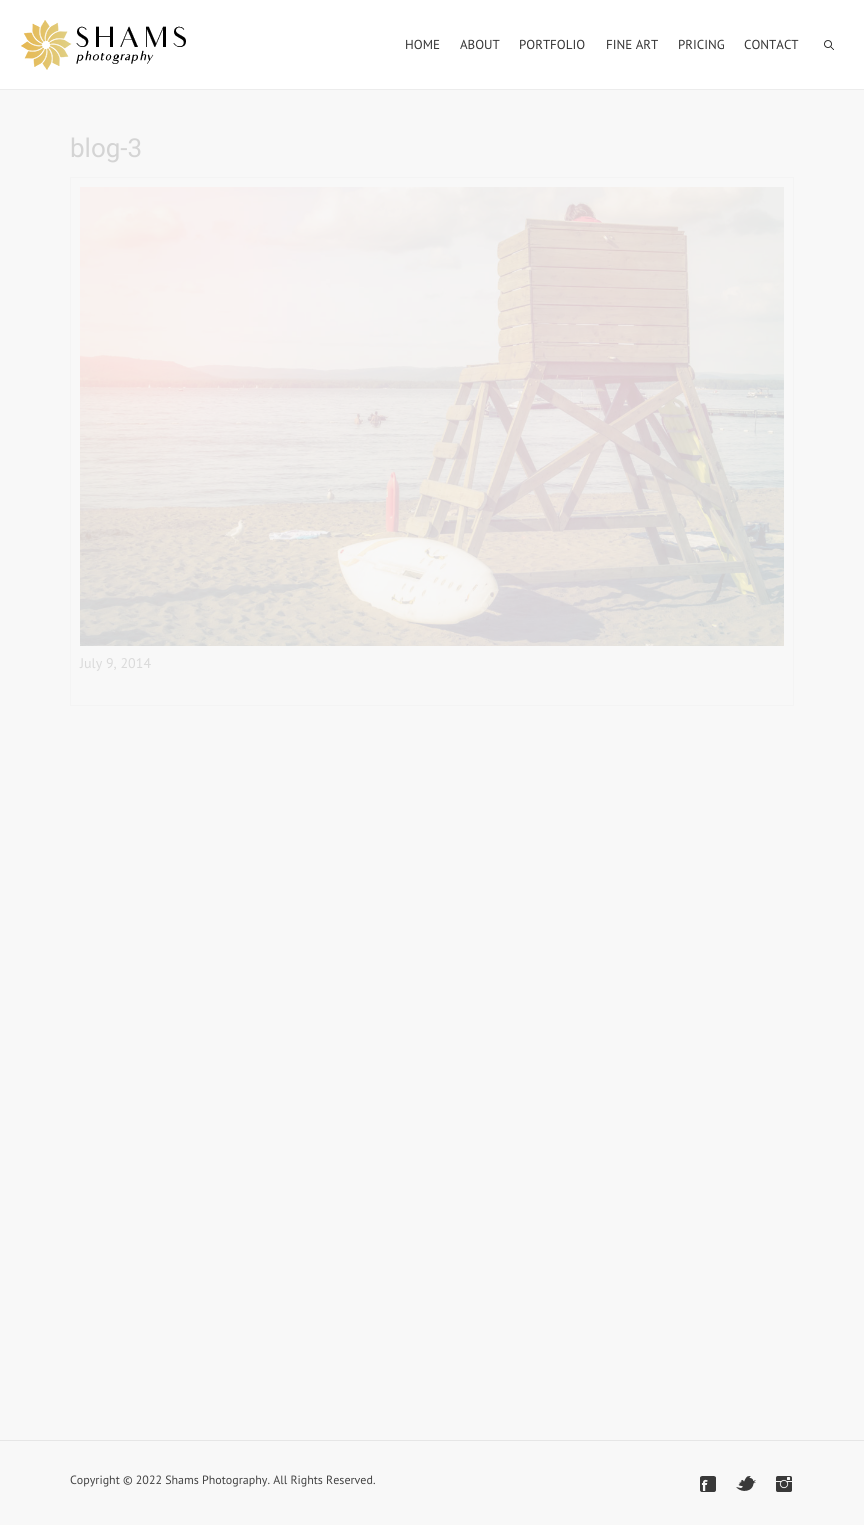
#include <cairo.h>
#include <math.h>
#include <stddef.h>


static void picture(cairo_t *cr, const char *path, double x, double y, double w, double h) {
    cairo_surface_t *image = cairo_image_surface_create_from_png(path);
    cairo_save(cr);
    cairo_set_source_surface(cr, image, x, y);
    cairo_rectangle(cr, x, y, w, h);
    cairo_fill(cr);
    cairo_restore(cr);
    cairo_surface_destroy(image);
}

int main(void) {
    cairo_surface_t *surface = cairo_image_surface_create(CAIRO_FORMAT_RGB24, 864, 1525);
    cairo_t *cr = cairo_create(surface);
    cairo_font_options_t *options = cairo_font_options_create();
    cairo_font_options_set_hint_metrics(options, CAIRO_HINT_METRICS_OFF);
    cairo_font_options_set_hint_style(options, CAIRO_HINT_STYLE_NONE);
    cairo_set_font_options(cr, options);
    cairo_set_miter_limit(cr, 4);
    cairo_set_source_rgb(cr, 0.969, 0.969, 0.969);
    cairo_paint(cr);
    cairo_set_source_rgb(cr, 1, 1, 1);
    cairo_rectangle(cr, 0, 0, 864, 89);
    cairo_fill(cr);
    cairo_set_source_rgb(cr, 0.925, 0.925, 0.925);
    cairo_rectangle(cr, 0, 89, 864, 1);
    cairo_fill(cr);
    picture(cr, "img1.png", 21, 20, 165, 50);
    cairo_select_font_face(cr, "PT Sans", CAIRO_FONT_SLANT_NORMAL, CAIRO_FONT_WEIGHT_NORMAL);
    cairo_set_font_size(cr, 13);
    cairo_set_source_rgb(cr, 0.204, 0.204, 0.204);
    cairo_move_to(cr, 405, 49);
    cairo_show_text(cr, "HOME");
    cairo_move_to(cr, 460, 49);
    cairo_show_text(cr, "ABOUT");
    cairo_move_to(cr, 519, 49);
    cairo_show_text(cr, "PORTFOLIO");
    cairo_move_to(cr, 606, 49);
    cairo_show_text(cr, "FINE ART");
    cairo_move_to(cr, 678, 49);
    cairo_show_text(cr, "PRICING");
    cairo_move_to(cr, 744, 49);
    cairo_show_text(cr, "CONTACT");
    picture(cr, "img2.png", 824, 40, 10, 10);
    cairo_select_font_face(cr, "Roboto", CAIRO_FONT_SLANT_NORMAL, CAIRO_FONT_WEIGHT_NORMAL);
    cairo_set_font_size(cr, 26);
    cairo_set_source_rgb(cr, 0.831, 0.831, 0.831);
    cairo_move_to(cr, 70, 157);
    cairo_show_text(cr, "blog-3");
    cairo_rectangle(cr, 70.5, 177.5, 723, 528);
    cairo_set_source_rgb(cr, 0.957, 0.957, 0.957);
    cairo_set_line_width(cr, 1);
    cairo_stroke(cr);
    picture(cr, "img3.png", 80, 187, 704, 459);
    cairo_select_font_face(cr, "PT Sans", CAIRO_FONT_SLANT_NORMAL, CAIRO_FONT_WEIGHT_NORMAL);
    cairo_set_font_size(cr, 14);
    cairo_set_source_rgb(cr, 0.855, 0.855, 0.855);
    cairo_move_to(cr, 80, 668);
    cairo_show_text(cr, "July 9, 2014");
    cairo_set_source_rgb(cr, 0.902, 0.902, 0.902);
    cairo_rectangle(cr, 0, 1440, 864, 1);
    cairo_fill(cr);
    cairo_set_font_size(cr, 12);
    cairo_set_source_rgb(cr, 0.263, 0.263, 0.263);
    cairo_move_to(cr, 70, 1484);
    cairo_show_text(cr, "Copyright © 2022 Shams Photography. All Rights Reserved.");
    picture(cr, "img4.png", 700, 1476, 16, 16);
    picture(cr, "img5.png", 736, 1476, 20, 15);
    picture(cr, "img6.png", 776, 1476, 16, 16);
    cairo_surface_write_to_png(surface, "page.png");
    cairo_font_options_destroy(options);
    cairo_destroy(cr);
    cairo_surface_destroy(surface);
    return 0;
}
